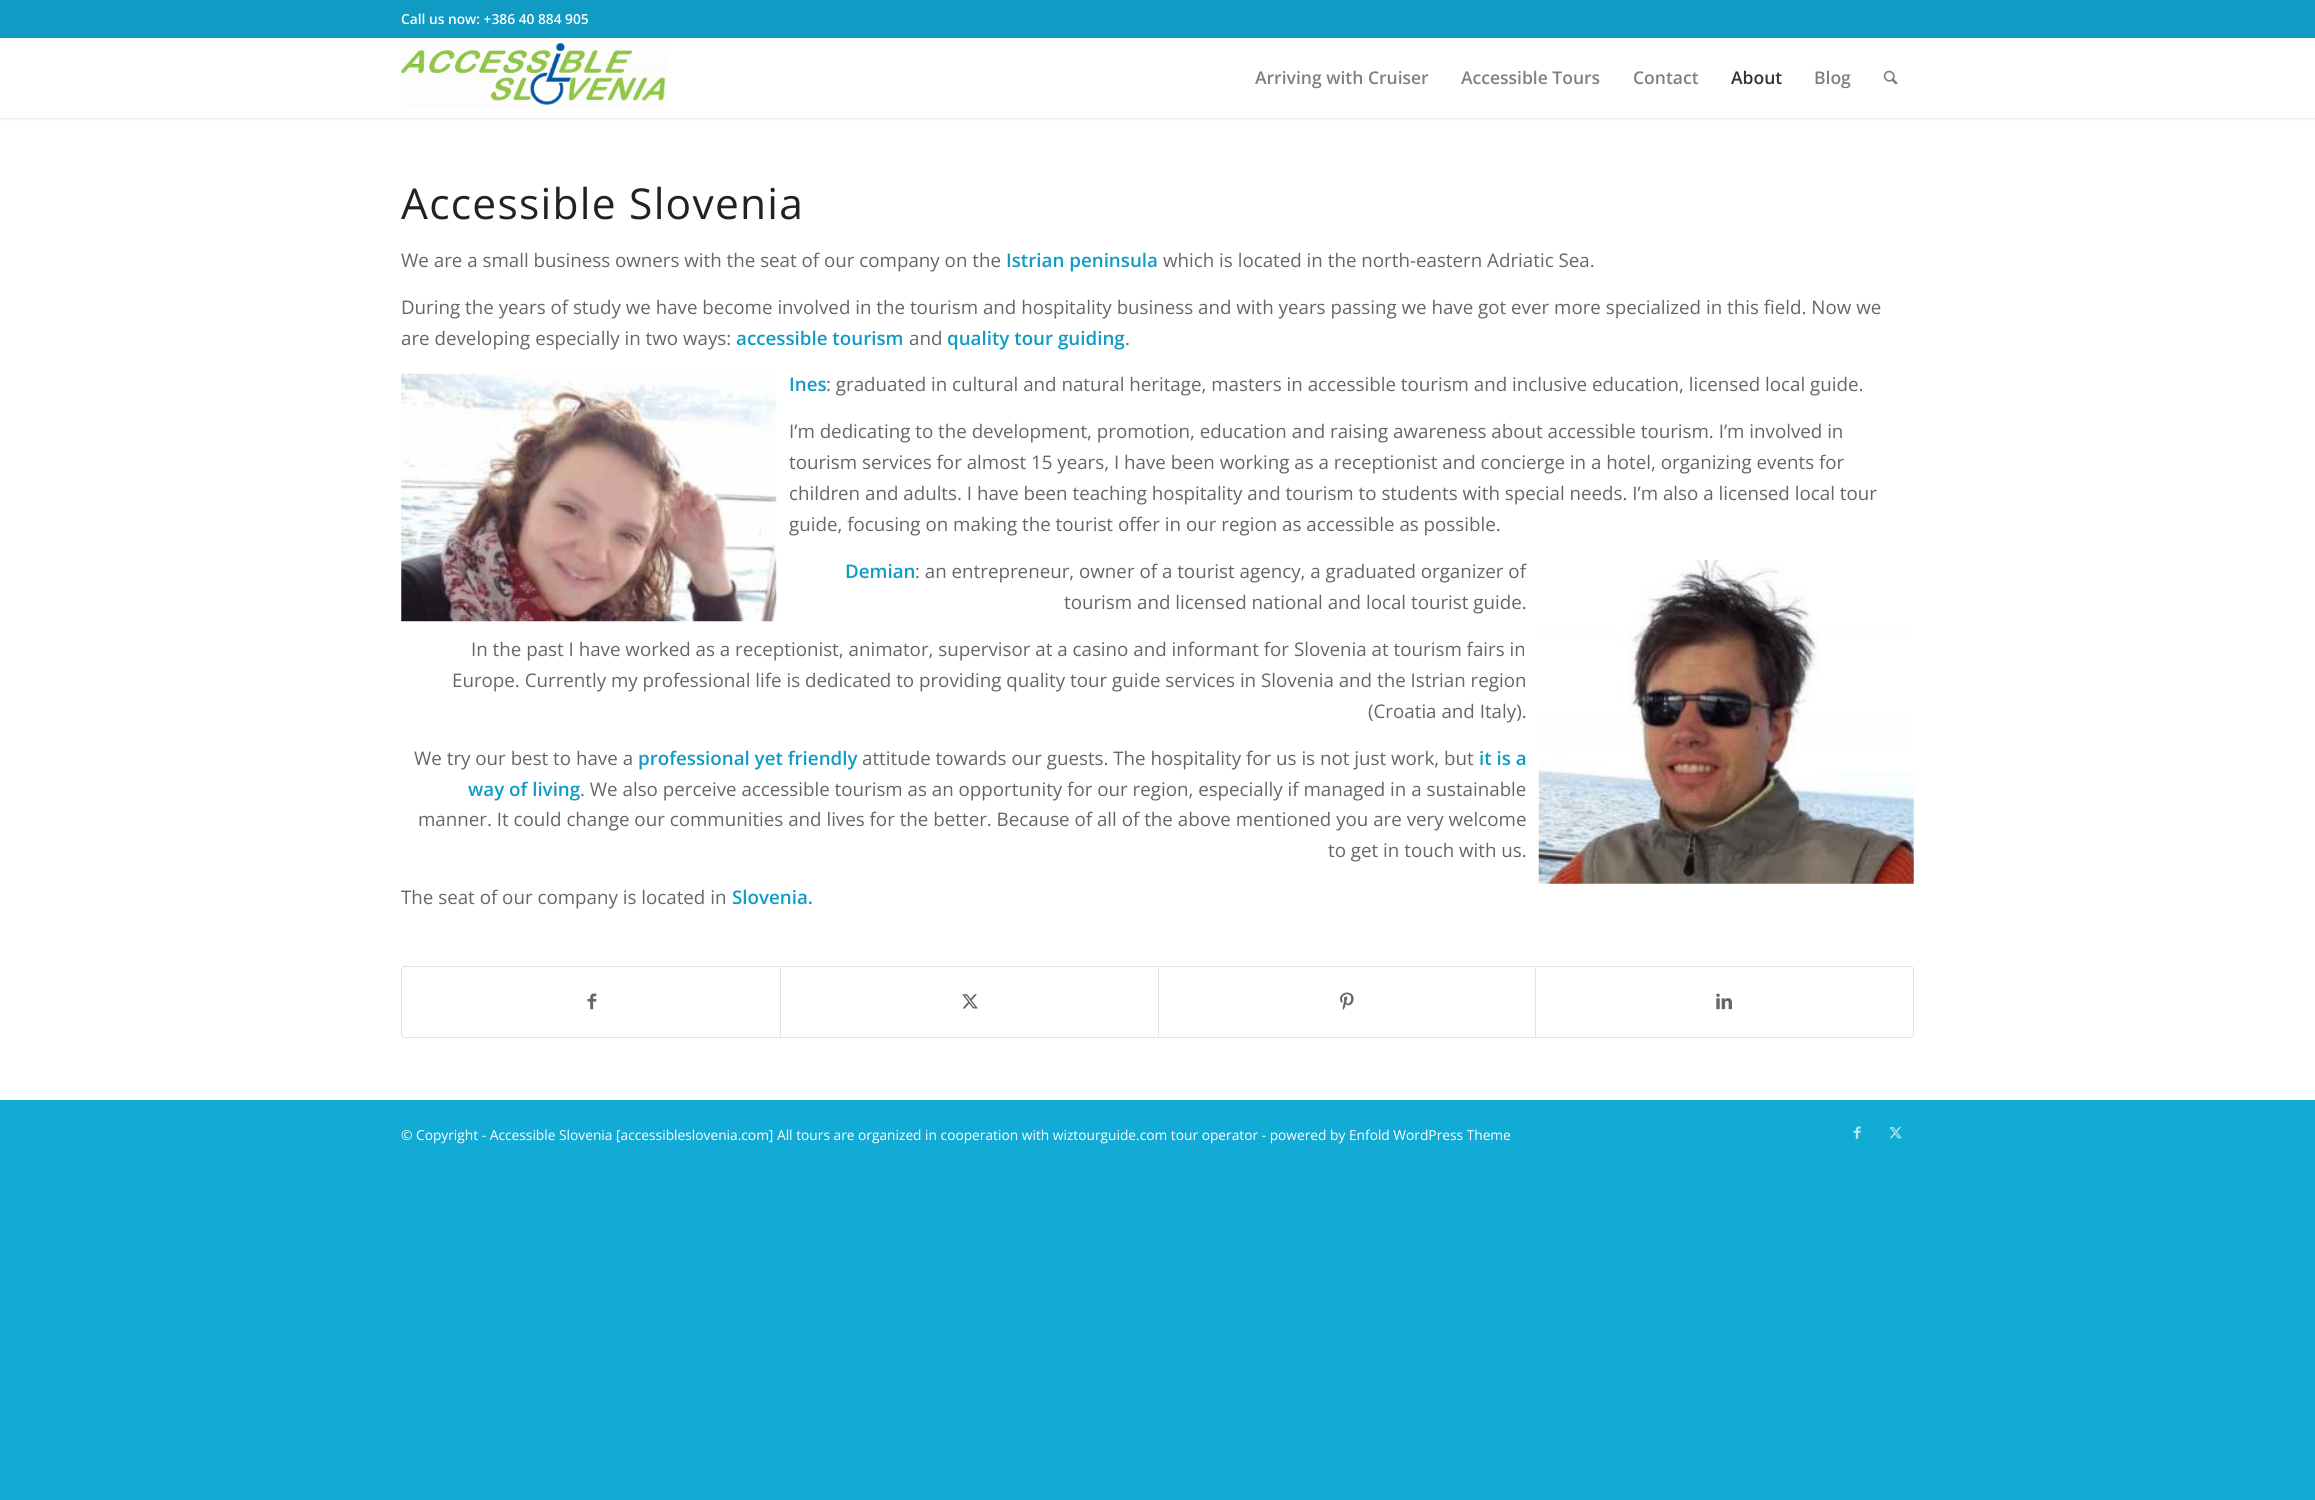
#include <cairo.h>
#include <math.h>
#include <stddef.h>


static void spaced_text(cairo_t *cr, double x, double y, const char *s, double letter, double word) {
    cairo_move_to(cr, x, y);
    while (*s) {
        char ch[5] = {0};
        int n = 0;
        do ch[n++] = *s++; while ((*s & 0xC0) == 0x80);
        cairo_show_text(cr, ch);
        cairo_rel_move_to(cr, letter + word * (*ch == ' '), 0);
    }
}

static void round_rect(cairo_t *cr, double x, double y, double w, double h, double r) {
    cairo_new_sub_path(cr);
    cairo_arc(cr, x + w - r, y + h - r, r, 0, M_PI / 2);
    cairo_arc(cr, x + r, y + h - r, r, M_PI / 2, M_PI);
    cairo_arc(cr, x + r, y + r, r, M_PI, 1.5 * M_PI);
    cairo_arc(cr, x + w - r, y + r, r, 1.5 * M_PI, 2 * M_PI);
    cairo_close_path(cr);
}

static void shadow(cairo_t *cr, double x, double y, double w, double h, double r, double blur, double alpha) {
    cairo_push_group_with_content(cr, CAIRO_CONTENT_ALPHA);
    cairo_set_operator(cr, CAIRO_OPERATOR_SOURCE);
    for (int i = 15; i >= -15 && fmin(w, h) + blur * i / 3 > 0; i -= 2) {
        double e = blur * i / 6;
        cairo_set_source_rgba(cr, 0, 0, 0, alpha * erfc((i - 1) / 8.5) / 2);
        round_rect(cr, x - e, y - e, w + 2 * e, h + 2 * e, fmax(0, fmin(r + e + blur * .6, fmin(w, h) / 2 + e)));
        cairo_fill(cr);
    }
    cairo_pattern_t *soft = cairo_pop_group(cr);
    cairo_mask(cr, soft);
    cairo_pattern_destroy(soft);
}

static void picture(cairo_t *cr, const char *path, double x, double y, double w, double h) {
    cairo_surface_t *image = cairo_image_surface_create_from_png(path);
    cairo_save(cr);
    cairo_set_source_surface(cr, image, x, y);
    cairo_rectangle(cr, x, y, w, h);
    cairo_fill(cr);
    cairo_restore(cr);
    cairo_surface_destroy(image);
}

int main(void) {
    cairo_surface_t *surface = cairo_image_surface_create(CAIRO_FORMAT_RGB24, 2315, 1500);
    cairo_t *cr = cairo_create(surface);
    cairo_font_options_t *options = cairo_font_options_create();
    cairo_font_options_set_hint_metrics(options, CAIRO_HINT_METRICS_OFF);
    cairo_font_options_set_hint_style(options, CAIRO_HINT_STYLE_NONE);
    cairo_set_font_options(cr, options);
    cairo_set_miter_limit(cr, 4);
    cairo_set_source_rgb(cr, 0.067, 0.671, 0.839);
    cairo_paint(cr);
    cairo_set_source_rgb(cr, 1, 1, 1);
    cairo_rectangle(cr, 0, 118, 2315, 982);
    cairo_fill(cr);
    cairo_set_source_rgb(cr, 0, 0, 0);
    shadow(cr, -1, -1, 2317, 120, 0, 1, 0.1);
    cairo_set_source_rgb(cr, 0.063, 0.608, 0.773);
    cairo_rectangle(cr, 0, 0, 2315, 38);
    cairo_fill(cr);
    cairo_select_font_face(cr, "Open Sans SemiBold", CAIRO_FONT_SLANT_NORMAL, CAIRO_FONT_WEIGHT_NORMAL);
    cairo_set_font_size(cr, 13.75);
    cairo_set_source_rgb(cr, 1, 1, 1);
    cairo_move_to(cr, 401, 24);
    cairo_show_text(cr, "Call us now: +386 40 884 905");
    cairo_rectangle(cr, 0, 38, 2315, 80);
    cairo_fill(cr);
    picture(cr, "img1.png", 401, 43, 265, 63);
    cairo_set_font_size(cr, 17.5);
    cairo_set_source_rgb(cr, 0.502, 0.502, 0.502);
    cairo_move_to(cr, 1255, 84);
    cairo_show_text(cr, "Arriving with Cruiser");
    cairo_move_to(cr, 1461, 84);
    cairo_show_text(cr, "Accessible Tours");
    cairo_move_to(cr, 1633, 84);
    cairo_show_text(cr, "Contact");
    cairo_set_source_rgb(cr, 0.2, 0.2, 0.2);
    cairo_move_to(cr, 1731, 84);
    cairo_show_text(cr, "About");
    cairo_set_source_rgb(cr, 0.502, 0.502, 0.502);
    cairo_move_to(cr, 1814, 84);
    cairo_show_text(cr, "Blog");
    picture(cr, "img2.png", 1883, 70, 15, 15);
    cairo_select_font_face(cr, "Open Sans", CAIRO_FONT_SLANT_NORMAL, CAIRO_FONT_WEIGHT_NORMAL);
    cairo_set_font_size(cr, 42.5);
    cairo_set_source_rgb(cr, 0.133, 0.133, 0.133);
    spaced_text(cr, 401, 219, "Accessible Slovenia", 1.25, 0);
    cairo_set_font_size(cr, 18.75);
    cairo_set_source_rgb(cr, 0.4, 0.4, 0.4);
    cairo_move_to(cr, 401, 267);
    cairo_show_text(cr, "We are a small business owners with the seat of our company on the");
    cairo_select_font_face(cr, "Open Sans SemiBold", CAIRO_FONT_SLANT_NORMAL, CAIRO_FONT_WEIGHT_NORMAL);
    cairo_set_source_rgb(cr, 0.063, 0.608, 0.773);
    cairo_move_to(cr, 1006, 267);
    cairo_show_text(cr, "Istrian peninsula");
    cairo_select_font_face(cr, "Open Sans", CAIRO_FONT_SLANT_NORMAL, CAIRO_FONT_WEIGHT_NORMAL);
    cairo_set_source_rgb(cr, 0.4, 0.4, 0.4);
    cairo_move_to(cr, 1163, 267);
    cairo_show_text(cr, "which is located in the north-eastern Adriatic Sea.");
    cairo_move_to(cr, 401, 314);
    cairo_show_text(cr, "During the years of study we have become involved in the tourism and hospitality business and with years passing we have got ever more specialized in this field. Now we");
    cairo_move_to(cr, 401, 345);
    cairo_show_text(cr, "are developing especially in two ways:");
    cairo_select_font_face(cr, "Open Sans SemiBold", CAIRO_FONT_SLANT_NORMAL, CAIRO_FONT_WEIGHT_NORMAL);
    cairo_set_source_rgb(cr, 0.063, 0.608, 0.773);
    cairo_move_to(cr, 736, 345);
    cairo_show_text(cr, "accessible tourism");
    cairo_select_font_face(cr, "Open Sans", CAIRO_FONT_SLANT_NORMAL, CAIRO_FONT_WEIGHT_NORMAL);
    cairo_set_source_rgb(cr, 0.4, 0.4, 0.4);
    cairo_move_to(cr, 909, 345);
    cairo_show_text(cr, "and");
    cairo_select_font_face(cr, "Open Sans SemiBold", CAIRO_FONT_SLANT_NORMAL, CAIRO_FONT_WEIGHT_NORMAL);
    cairo_set_source_rgb(cr, 0.063, 0.608, 0.773);
    cairo_move_to(cr, 947, 345);
    cairo_show_text(cr, "quality tour guiding");
    cairo_select_font_face(cr, "Open Sans", CAIRO_FONT_SLANT_NORMAL, CAIRO_FONT_WEIGHT_NORMAL);
    cairo_set_source_rgb(cr, 0.4, 0.4, 0.4);
    cairo_move_to(cr, 1125, 345);
    cairo_show_text(cr, ".");
    picture(cr, "img3.png", 401, 373, 376, 249);
    cairo_select_font_face(cr, "Open Sans SemiBold", CAIRO_FONT_SLANT_NORMAL, CAIRO_FONT_WEIGHT_NORMAL);
    cairo_set_source_rgb(cr, 0.063, 0.608, 0.773);
    cairo_move_to(cr, 789, 391);
    cairo_show_text(cr, "Ines");
    cairo_select_font_face(cr, "Open Sans", CAIRO_FONT_SLANT_NORMAL, CAIRO_FONT_WEIGHT_NORMAL);
    cairo_set_source_rgb(cr, 0.4, 0.4, 0.4);
    cairo_move_to(cr, 826, 391);
    cairo_show_text(cr, ": graduated in cultural and natural heritage, masters in accessible tourism and inclusive education, licensed local guide.");
    cairo_move_to(cr, 789, 438);
    cairo_show_text(cr, "I’m dedicating to the development, promotion, education and raising awareness about accessible tourism. I’m involved in");
    cairo_move_to(cr, 789, 469);
    cairo_show_text(cr, "tourism services for almost 15 years, I have been working as a receptionist and concierge in a hotel, organizing events for");
    cairo_move_to(cr, 789, 500);
    cairo_show_text(cr, "children and adults. I have been teaching hospitality and tourism to students with special needs. I’m also a licensed local tour");
    cairo_move_to(cr, 789, 531);
    cairo_show_text(cr, "guide, focusing on making the tourist offer in our region as accessible as possible.");
    cairo_select_font_face(cr, "Open Sans SemiBold", CAIRO_FONT_SLANT_NORMAL, CAIRO_FONT_WEIGHT_NORMAL);
    cairo_set_source_rgb(cr, 0.063, 0.608, 0.773);
    cairo_move_to(cr, 845, 578);
    cairo_show_text(cr, "Demian");
    cairo_select_font_face(cr, "Open Sans", CAIRO_FONT_SLANT_NORMAL, CAIRO_FONT_WEIGHT_NORMAL);
    cairo_set_source_rgb(cr, 0.4, 0.4, 0.4);
    cairo_move_to(cr, 915, 578);
    cairo_show_text(cr, ": an entrepreneur, owner of a tourist agency, a graduated organizer of");
    picture(cr, "img4.png", 1538, 560, 376, 324);
    cairo_move_to(cr, 1064, 609);
    cairo_show_text(cr, "tourism and licensed national and local tourist guide.");
    cairo_move_to(cr, 471, 656);
    cairo_show_text(cr, "In the past I have worked as a receptionist, animator, supervisor at a casino and informant for Slovenia at tourism fairs in");
    cairo_move_to(cr, 452, 687);
    cairo_show_text(cr, "Europe. Currently my professional life is dedicated to providing quality tour guide services in Slovenia and the Istrian region");
    cairo_move_to(cr, 1368, 718);
    cairo_show_text(cr, "(Croatia and Italy).");
    cairo_move_to(cr, 414, 765);
    cairo_show_text(cr, "We try our best to have a");
    cairo_select_font_face(cr, "Open Sans SemiBold", CAIRO_FONT_SLANT_NORMAL, CAIRO_FONT_WEIGHT_NORMAL);
    cairo_set_source_rgb(cr, 0.063, 0.608, 0.773);
    cairo_move_to(cr, 638, 765);
    cairo_show_text(cr, "professional yet friendly");
    cairo_select_font_face(cr, "Open Sans", CAIRO_FONT_SLANT_NORMAL, CAIRO_FONT_WEIGHT_NORMAL);
    cairo_set_source_rgb(cr, 0.4, 0.4, 0.4);
    cairo_move_to(cr, 862, 765);
    cairo_show_text(cr, "attitude towards our guests. The hospitality for us is not just work, but");
    cairo_select_font_face(cr, "Open Sans SemiBold", CAIRO_FONT_SLANT_NORMAL, CAIRO_FONT_WEIGHT_NORMAL);
    cairo_set_source_rgb(cr, 0.063, 0.608, 0.773);
    cairo_move_to(cr, 1479, 765);
    cairo_show_text(cr, "it is a");
    cairo_move_to(cr, 468, 796);
    cairo_show_text(cr, "way of living");
    cairo_select_font_face(cr, "Open Sans", CAIRO_FONT_SLANT_NORMAL, CAIRO_FONT_WEIGHT_NORMAL);
    cairo_set_source_rgb(cr, 0.4, 0.4, 0.4);
    cairo_move_to(cr, 580, 796);
    cairo_show_text(cr, ". We also perceive accessible tourism as an opportunity for our region, especially if managed in a sustainable");
    cairo_move_to(cr, 418, 826);
    cairo_show_text(cr, "manner. It could change our communities and lives for the better. Because of all of the above mentioned you are very welcome");
    cairo_move_to(cr, 1328, 857);
    cairo_show_text(cr, "to get in touch with us.");
    cairo_move_to(cr, 401, 904);
    cairo_show_text(cr, "The seat of our company is located in");
    cairo_select_font_face(cr, "Open Sans SemiBold", CAIRO_FONT_SLANT_NORMAL, CAIRO_FONT_WEIGHT_NORMAL);
    cairo_set_source_rgb(cr, 0.063, 0.608, 0.773);
    cairo_move_to(cr, 732, 904);
    cairo_show_text(cr, "Slovenia.");
    round_rect(cr, 401.5, 966.5, 1512, 71, 3.5);
    cairo_set_source_rgb(cr, 0.882, 0.882, 0.882);
    cairo_set_line_width(cr, 1);
    cairo_stroke(cr);
    picture(cr, "img5.png", 587, 993, 10, 17);
    cairo_rectangle(cr, 780, 968, 1, 68);
    cairo_fill(cr);
    picture(cr, "img6.png", 962, 994, 16, 15);
    cairo_rectangle(cr, 1158, 968, 1, 68);
    cairo_fill(cr);
    picture(cr, "img7.png", 1340, 992, 14, 18);
    cairo_rectangle(cr, 1535, 968, 1, 68);
    cairo_fill(cr);
    picture(cr, "img8.png", 1716, 993, 16, 17);
    cairo_select_font_face(cr, "Open Sans", CAIRO_FONT_SLANT_NORMAL, CAIRO_FONT_WEIGHT_NORMAL);
    cairo_set_font_size(cr, 13.75);
    cairo_set_source_rgb(cr, 1, 1, 1);
    cairo_move_to(cr, 401, 1140);
    cairo_show_text(cr, "© Copyright - Accessible Slovenia [accessibleslovenia.com] All tours are organized in cooperation with wiztourguide.com tour operator - powered by Enfold WordPress Theme");
    picture(cr, "img9.png", 1853, 1126, 8, 13);
    picture(cr, "img10.png", 1889, 1127, 13, 12);
    cairo_surface_write_to_png(surface, "page.png");
    cairo_font_options_destroy(options);
    cairo_destroy(cr);
    cairo_surface_destroy(surface);
    return 0;
}
